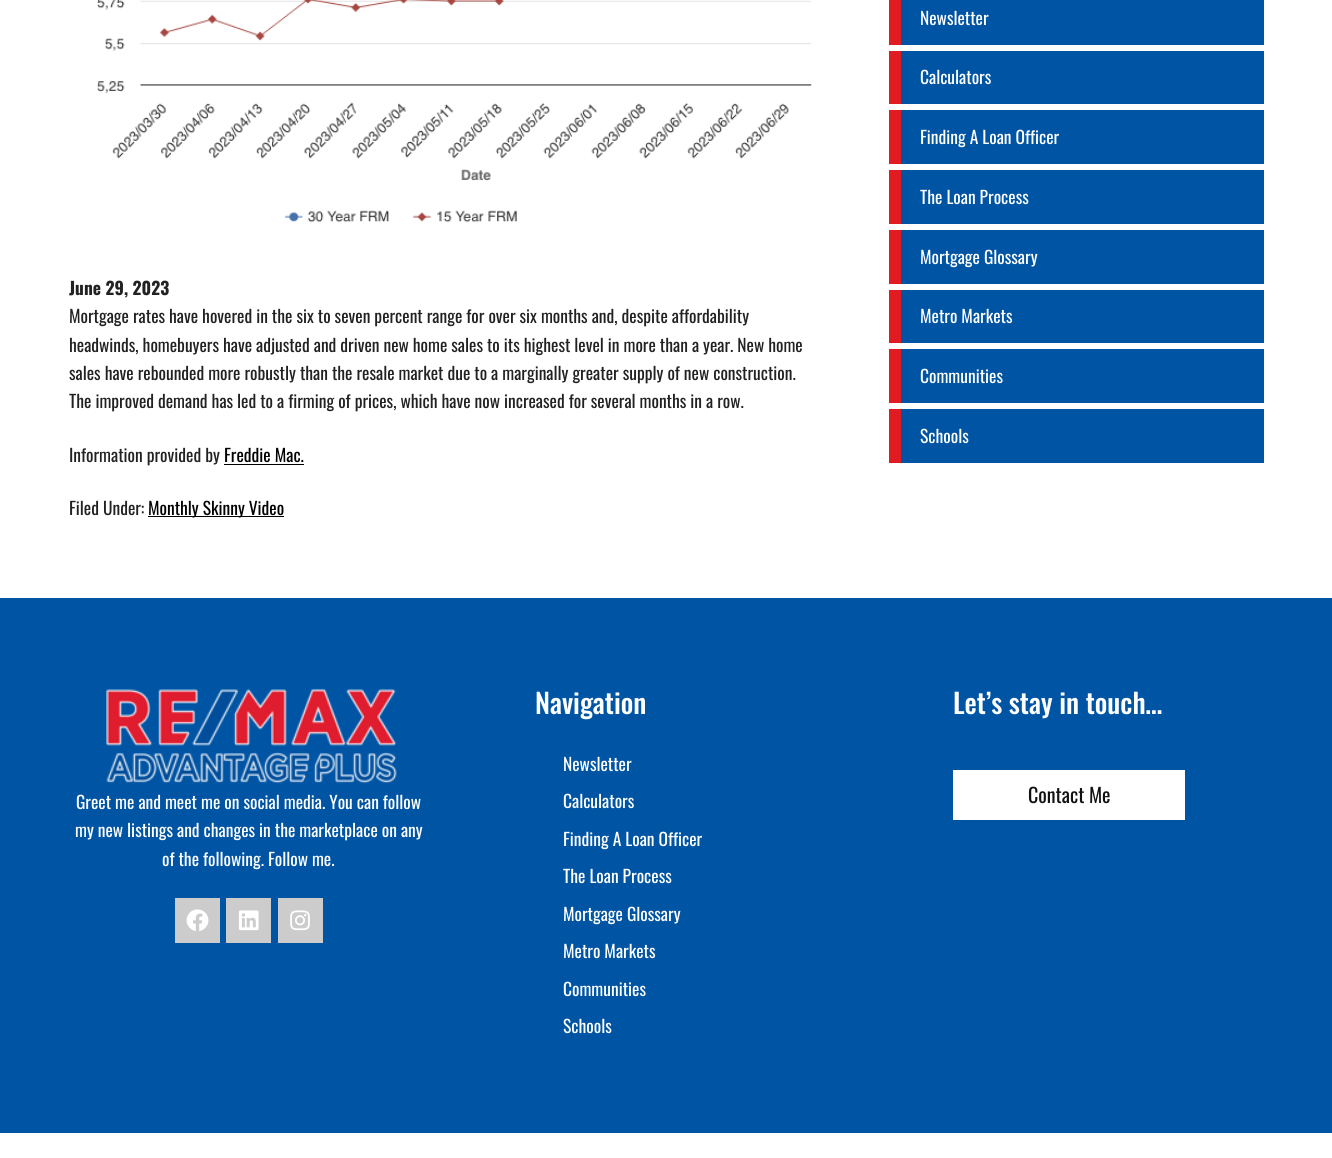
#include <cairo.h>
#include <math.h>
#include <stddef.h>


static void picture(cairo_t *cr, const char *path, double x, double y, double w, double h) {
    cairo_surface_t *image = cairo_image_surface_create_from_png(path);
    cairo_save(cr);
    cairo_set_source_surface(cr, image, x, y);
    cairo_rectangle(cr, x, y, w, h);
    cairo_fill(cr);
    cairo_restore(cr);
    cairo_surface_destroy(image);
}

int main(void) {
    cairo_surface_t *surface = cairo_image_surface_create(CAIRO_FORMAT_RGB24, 1332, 1158);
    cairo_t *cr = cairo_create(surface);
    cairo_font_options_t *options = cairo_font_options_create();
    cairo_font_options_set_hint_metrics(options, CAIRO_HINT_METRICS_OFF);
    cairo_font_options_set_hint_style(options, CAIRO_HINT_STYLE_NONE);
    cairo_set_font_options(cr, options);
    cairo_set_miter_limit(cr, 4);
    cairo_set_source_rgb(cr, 1, 1, 1);
    cairo_paint(cr);
    picture(cr, "img1.png", 97, 0, 715, 223);
    cairo_select_font_face(cr, "Oswald", CAIRO_FONT_SLANT_NORMAL, CAIRO_FONT_WEIGHT_BOLD);
    cairo_set_font_size(cr, 17.5);
    cairo_set_source_rgb(cr, 0.133, 0.133, 0.133);
    cairo_move_to(cr, 69, 295);
    cairo_show_text(cr, "June 29, 2023");
    cairo_select_font_face(cr, "Oswald", CAIRO_FONT_SLANT_NORMAL, CAIRO_FONT_WEIGHT_NORMAL);
    cairo_move_to(cr, 69, 323);
    cairo_show_text(cr, "Mortgage rates have hovered in the six to seven percent range for over six months and, despite affordability");
    cairo_move_to(cr, 69, 352);
    cairo_show_text(cr, "headwinds, homebuyers have adjusted and driven new home sales to its highest level in more than a year. New home");
    cairo_move_to(cr, 69, 380);
    cairo_show_text(cr, "sales have rebounded more robustly than the resale market due to a marginally greater supply of new construction.");
    cairo_move_to(cr, 69, 408);
    cairo_show_text(cr, "The improved demand has led to a firming of prices, which have now increased for several months in a row.");
    cairo_move_to(cr, 69, 462);
    cairo_show_text(cr, "Information provided by");
    cairo_set_source_rgb(cr, 0, 0, 0);
    cairo_move_to(cr, 224, 462);
    cairo_show_text(cr, "Freddie Mac.");
    cairo_rectangle(cr, 224, 464, 80, 1);
    cairo_fill(cr);
    cairo_set_source_rgb(cr, 0.133, 0.133, 0.133);
    cairo_move_to(cr, 69, 515);
    cairo_show_text(cr, "Filed Under:");
    cairo_set_source_rgb(cr, 0, 0, 0);
    cairo_rectangle(cr, 148, 516, 136, 1);
    cairo_fill(cr);
    cairo_move_to(cr, 148, 515);
    cairo_show_text(cr, "Monthly Skinny Video");
    cairo_set_source_rgb(cr, 0, 0.329, 0.643);
    cairo_rectangle(cr, 901, 0, 363, 45);
    cairo_fill(cr);
    cairo_set_source_rgb(cr, 0.882, 0.106, 0.133);
    cairo_rectangle(cr, 889, 0, 12, 45);
    cairo_fill(cr);
    cairo_set_source_rgb(cr, 1, 1, 1);
    cairo_move_to(cr, 920, 25);
    cairo_show_text(cr, "Newsletter");
    cairo_set_source_rgb(cr, 0, 0.329, 0.643);
    cairo_rectangle(cr, 901, 51, 363, 53);
    cairo_fill(cr);
    cairo_set_source_rgb(cr, 0.882, 0.106, 0.133);
    cairo_rectangle(cr, 889, 51, 12, 53);
    cairo_fill(cr);
    cairo_set_source_rgb(cr, 1, 1, 1);
    cairo_move_to(cr, 920, 84);
    cairo_show_text(cr, "Calculators");
    cairo_set_source_rgb(cr, 0, 0.329, 0.643);
    cairo_rectangle(cr, 901, 110, 363, 54);
    cairo_fill(cr);
    cairo_set_source_rgb(cr, 0.882, 0.106, 0.133);
    cairo_rectangle(cr, 889, 110, 12, 54);
    cairo_fill(cr);
    cairo_set_source_rgb(cr, 1, 1, 1);
    cairo_move_to(cr, 920, 144);
    cairo_show_text(cr, "Finding A Loan Officer");
    cairo_set_source_rgb(cr, 0, 0.329, 0.643);
    cairo_rectangle(cr, 901, 170, 363, 54);
    cairo_fill(cr);
    cairo_set_source_rgb(cr, 0.882, 0.106, 0.133);
    cairo_rectangle(cr, 889, 170, 12, 54);
    cairo_fill(cr);
    cairo_set_source_rgb(cr, 1, 1, 1);
    cairo_move_to(cr, 920, 204);
    cairo_show_text(cr, "The Loan Process");
    cairo_set_source_rgb(cr, 0, 0.329, 0.643);
    cairo_rectangle(cr, 901, 230, 363, 54);
    cairo_fill(cr);
    cairo_set_source_rgb(cr, 0.882, 0.106, 0.133);
    cairo_rectangle(cr, 889, 230, 12, 54);
    cairo_fill(cr);
    cairo_set_source_rgb(cr, 1, 1, 1);
    cairo_move_to(cr, 920, 264);
    cairo_show_text(cr, "Mortgage Glossary");
    cairo_set_source_rgb(cr, 0, 0.329, 0.643);
    cairo_rectangle(cr, 901, 290, 363, 53);
    cairo_fill(cr);
    cairo_set_source_rgb(cr, 0.882, 0.106, 0.133);
    cairo_rectangle(cr, 889, 290, 12, 53);
    cairo_fill(cr);
    cairo_set_source_rgb(cr, 1, 1, 1);
    cairo_move_to(cr, 920, 323);
    cairo_show_text(cr, "Metro Markets");
    cairo_set_source_rgb(cr, 0, 0.329, 0.643);
    cairo_rectangle(cr, 901, 349, 363, 54);
    cairo_fill(cr);
    cairo_set_source_rgb(cr, 0.882, 0.106, 0.133);
    cairo_rectangle(cr, 889, 349, 12, 54);
    cairo_fill(cr);
    cairo_set_source_rgb(cr, 1, 1, 1);
    cairo_move_to(cr, 920, 383);
    cairo_show_text(cr, "Communities");
    cairo_set_source_rgb(cr, 0, 0.329, 0.643);
    cairo_rectangle(cr, 901, 409, 363, 54);
    cairo_fill(cr);
    cairo_set_source_rgb(cr, 0.882, 0.106, 0.133);
    cairo_rectangle(cr, 889, 409, 12, 54);
    cairo_fill(cr);
    cairo_set_source_rgb(cr, 1, 1, 1);
    cairo_move_to(cr, 920, 443);
    cairo_show_text(cr, "Schools");
    cairo_set_source_rgb(cr, 0, 0.329, 0.643);
    cairo_rectangle(cr, 0, 598, 1332, 535);
    cairo_fill(cr);
    cairo_select_font_face(cr, "Oswald Medium", CAIRO_FONT_SLANT_NORMAL, CAIRO_FONT_WEIGHT_NORMAL);
    cairo_set_font_size(cr, 27.5);
    cairo_set_source_rgb(cr, 1, 1, 1);
    cairo_move_to(cr, 535, 714);
    cairo_show_text(cr, "Navigation");
    cairo_select_font_face(cr, "Oswald", CAIRO_FONT_SLANT_NORMAL, CAIRO_FONT_WEIGHT_NORMAL);
    cairo_set_font_size(cr, 17.5);
    cairo_move_to(cr, 563, 771);
    cairo_show_text(cr, "Newsletter");
    cairo_move_to(cr, 563, 808);
    cairo_show_text(cr, "Calculators");
    cairo_move_to(cr, 563, 846);
    cairo_show_text(cr, "Finding A Loan Officer");
    cairo_move_to(cr, 563, 883);
    cairo_show_text(cr, "The Loan Process");
    cairo_move_to(cr, 563, 921);
    cairo_show_text(cr, "Mortgage Glossary");
    cairo_move_to(cr, 563, 958);
    cairo_show_text(cr, "Metro Markets");
    cairo_move_to(cr, 563, 996);
    cairo_show_text(cr, "Communities");
    cairo_move_to(cr, 563, 1033);
    cairo_show_text(cr, "Schools");
    cairo_select_font_face(cr, "Oswald Medium", CAIRO_FONT_SLANT_NORMAL, CAIRO_FONT_WEIGHT_NORMAL);
    cairo_set_font_size(cr, 27.5);
    cairo_move_to(cr, 953, 714);
    cairo_show_text(cr, "Let’s stay in touch…");
    cairo_rectangle(cr, 953, 770, 232, 50);
    cairo_fill(cr);
    cairo_select_font_face(cr, "Oswald", CAIRO_FONT_SLANT_NORMAL, CAIRO_FONT_WEIGHT_NORMAL);
    cairo_set_font_size(cr, 20);
    cairo_set_source_rgb(cr, 0.067, 0.067, 0.067);
    cairo_move_to(cr, 1028, 803);
    cairo_show_text(cr, "Contact Me");
    picture(cr, "img2.png", 106, 688, 291, 96);
    cairo_set_font_size(cr, 17.5);
    cairo_set_source_rgb(cr, 1, 1, 1);
    cairo_move_to(cr, 76, 809);
    cairo_show_text(cr, "Greet me and meet me on social media. You can follow");
    cairo_move_to(cr, 75, 837);
    cairo_show_text(cr, "my new listings and changes in the marketplace on any");
    cairo_move_to(cr, 162, 866);
    cairo_show_text(cr, "of the following. Follow me.");
    cairo_set_source_rgb(cr, 0.8, 0.8, 0.8);
    cairo_rectangle(cr, 175, 898, 45, 45);
    cairo_fill(cr);
    picture(cr, "img3.png", 186, 909, 23, 22);
    cairo_rectangle(cr, 226, 898, 45, 45);
    cairo_fill(cr);
    picture(cr, "img4.png", 238, 910, 21, 21);
    cairo_rectangle(cr, 278, 898, 45, 45);
    cairo_fill(cr);
    picture(cr, "img5.png", 290, 910, 20, 21);
    cairo_surface_write_to_png(surface, "page.png");
    cairo_font_options_destroy(options);
    cairo_destroy(cr);
    cairo_surface_destroy(surface);
    return 0;
}
